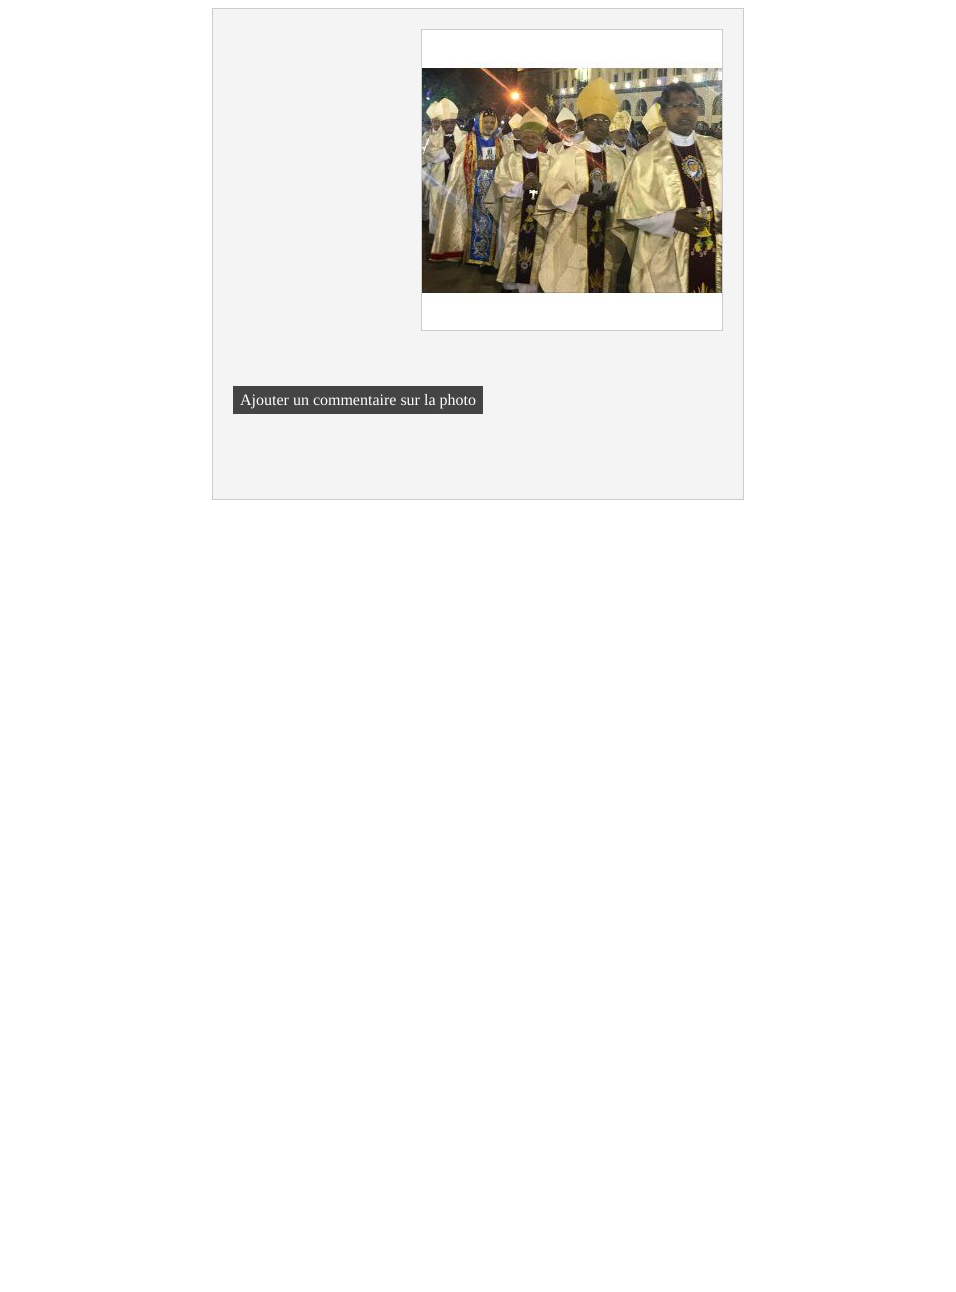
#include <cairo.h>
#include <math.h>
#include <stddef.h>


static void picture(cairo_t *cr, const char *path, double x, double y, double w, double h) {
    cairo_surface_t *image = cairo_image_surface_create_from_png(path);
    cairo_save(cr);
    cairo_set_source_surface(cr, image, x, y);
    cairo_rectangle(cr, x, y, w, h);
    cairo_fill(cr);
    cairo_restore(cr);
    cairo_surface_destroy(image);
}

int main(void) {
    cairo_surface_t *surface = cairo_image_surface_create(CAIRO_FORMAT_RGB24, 956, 1292);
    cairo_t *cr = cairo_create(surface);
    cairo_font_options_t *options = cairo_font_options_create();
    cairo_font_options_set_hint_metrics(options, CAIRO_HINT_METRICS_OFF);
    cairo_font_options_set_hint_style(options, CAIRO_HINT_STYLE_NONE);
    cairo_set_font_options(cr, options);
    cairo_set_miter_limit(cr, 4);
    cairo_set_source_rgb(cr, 1, 1, 1);
    cairo_paint(cr);
    cairo_set_source_rgb(cr, 0.957, 0.957, 0.957);
    cairo_rectangle(cr, 212.5, 8.5, 531, 491);
    cairo_fill_preserve(cr);
    cairo_set_source_rgb(cr, 0.8, 0.8, 0.8);
    cairo_set_line_width(cr, 1);
    cairo_stroke(cr);
    cairo_rectangle(cr, 421.5, 29.5, 301, 301);
    cairo_stroke(cr);
    picture(cr, "img1.png", 422, 30, 300, 300);
    cairo_set_source_rgb(cr, 0.267, 0.267, 0.267);
    cairo_rectangle(cr, 233, 386, 250, 28);
    cairo_fill(cr);
    cairo_select_font_face(cr, "Liberation Serif", CAIRO_FONT_SLANT_NORMAL, CAIRO_FONT_WEIGHT_NORMAL);
    cairo_set_font_size(cr, 16);
    cairo_set_source_rgb(cr, 1, 1, 1);
    cairo_move_to(cr, 240, 405);
    cairo_show_text(cr, "Ajouter un commentaire sur la photo");
    cairo_surface_write_to_png(surface, "page.png");
    cairo_font_options_destroy(options);
    cairo_destroy(cr);
    cairo_surface_destroy(surface);
    return 0;
}
